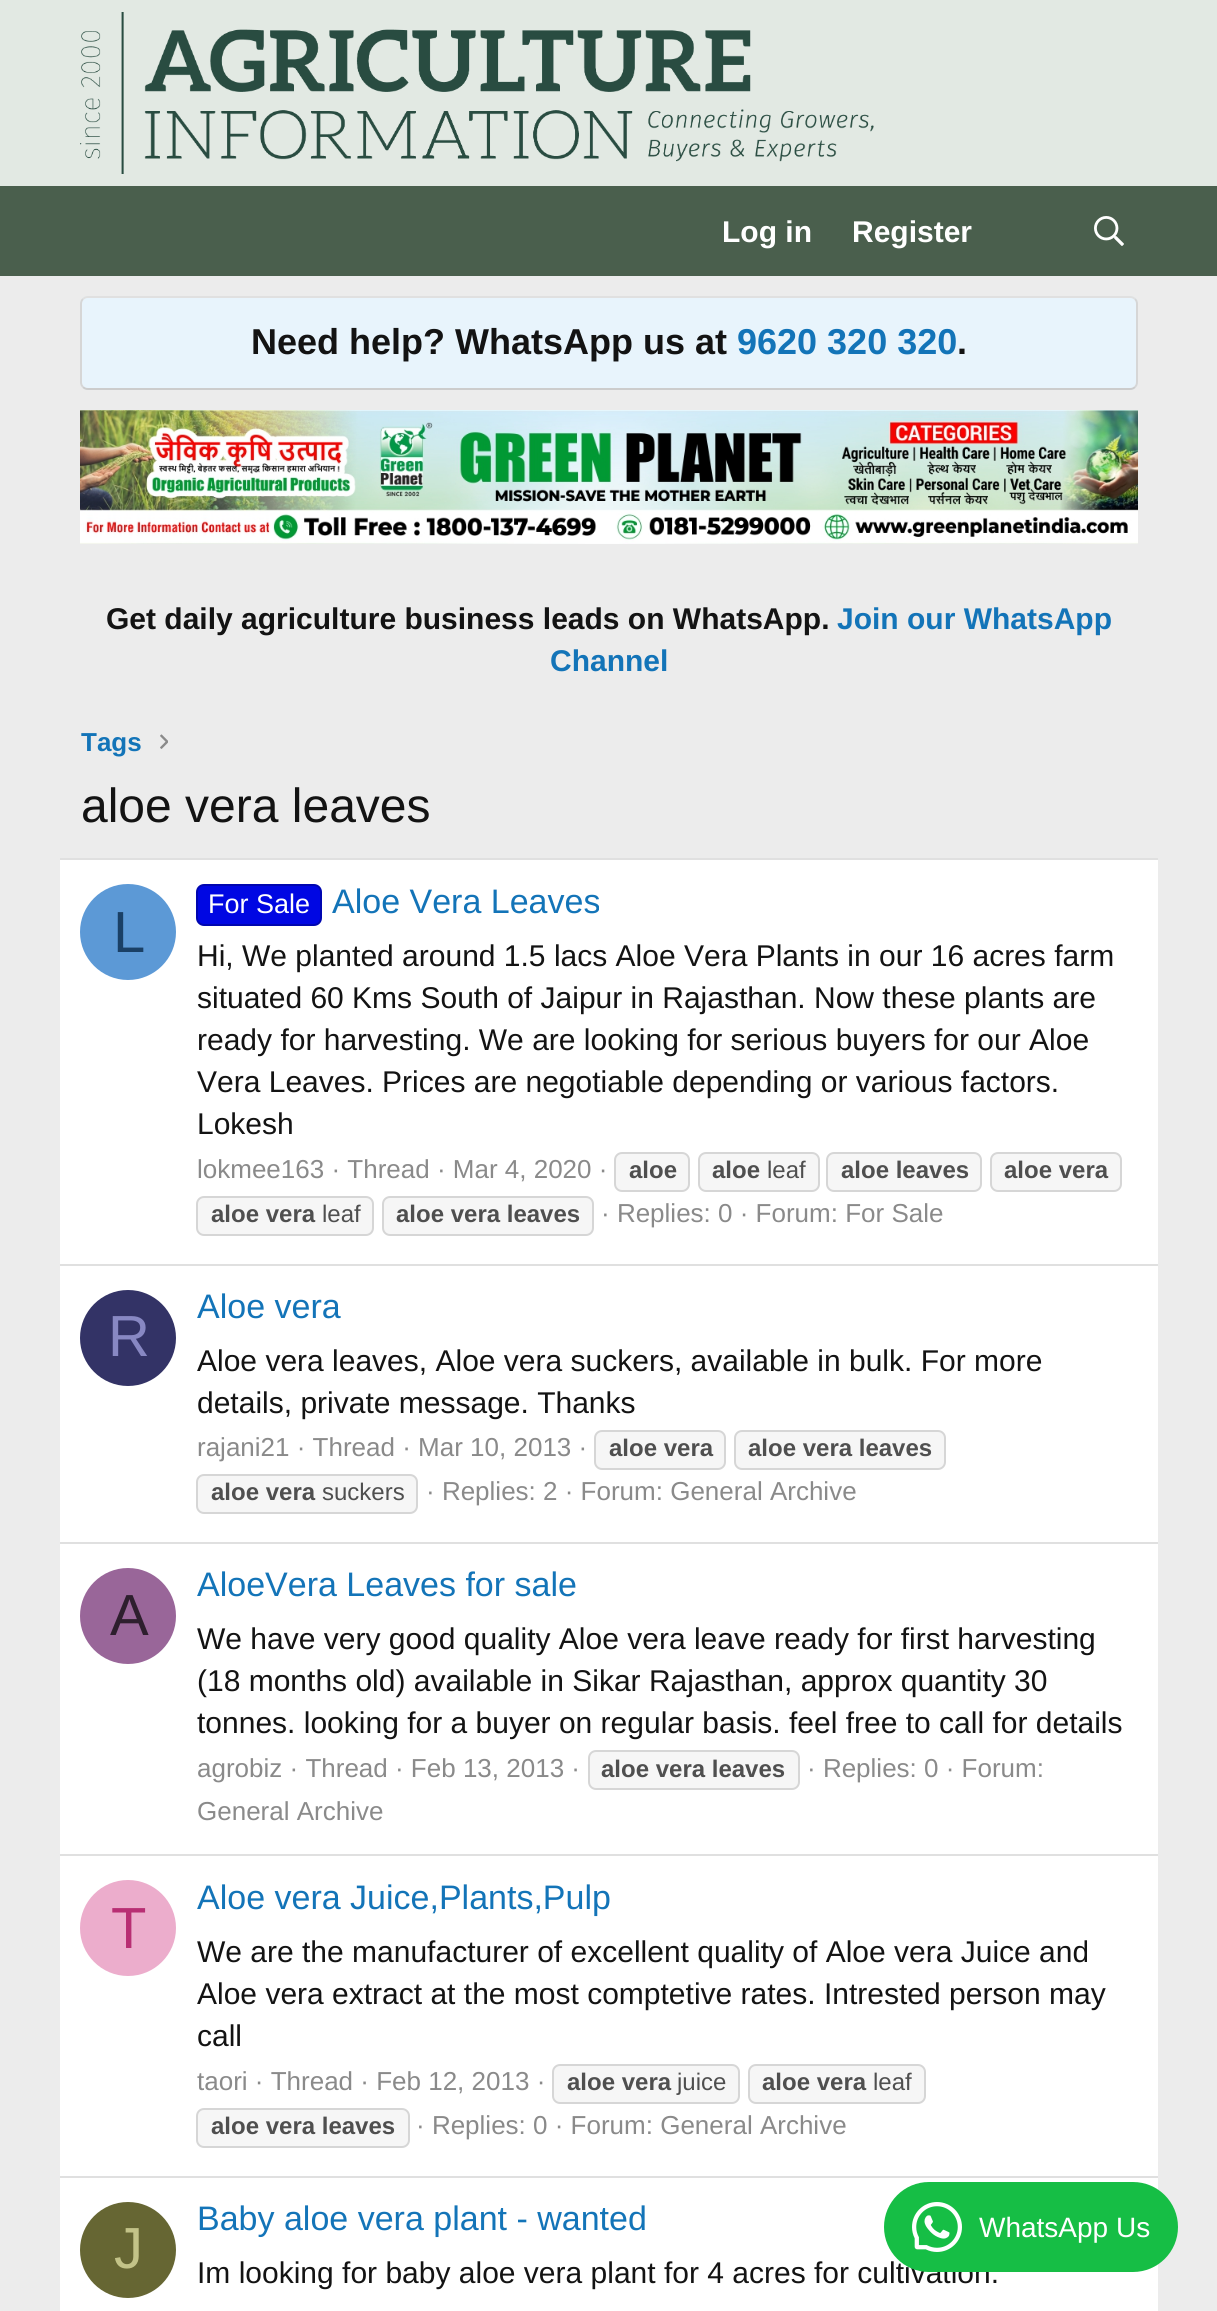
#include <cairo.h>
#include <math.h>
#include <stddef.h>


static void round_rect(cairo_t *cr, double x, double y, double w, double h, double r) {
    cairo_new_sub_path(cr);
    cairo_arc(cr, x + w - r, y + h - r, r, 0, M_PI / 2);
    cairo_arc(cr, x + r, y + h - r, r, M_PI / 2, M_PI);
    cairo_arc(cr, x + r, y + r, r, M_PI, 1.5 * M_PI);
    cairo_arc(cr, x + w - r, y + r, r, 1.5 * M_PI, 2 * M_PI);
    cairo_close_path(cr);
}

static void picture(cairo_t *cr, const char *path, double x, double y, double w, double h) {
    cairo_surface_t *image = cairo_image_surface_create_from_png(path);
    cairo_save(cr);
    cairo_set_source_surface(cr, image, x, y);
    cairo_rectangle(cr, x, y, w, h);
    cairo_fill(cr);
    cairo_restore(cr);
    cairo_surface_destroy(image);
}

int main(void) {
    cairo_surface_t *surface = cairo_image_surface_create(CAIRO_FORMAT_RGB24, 1217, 2311);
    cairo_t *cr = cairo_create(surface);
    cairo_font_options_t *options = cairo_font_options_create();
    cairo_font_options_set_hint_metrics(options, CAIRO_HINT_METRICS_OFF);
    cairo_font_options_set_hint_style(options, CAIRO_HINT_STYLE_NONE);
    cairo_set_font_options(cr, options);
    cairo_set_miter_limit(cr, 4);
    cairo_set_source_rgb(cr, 0.922, 0.922, 0.922);
    cairo_paint(cr);
    cairo_set_source_rgb(cr, 0.886, 0.914, 0.89);
    cairo_rectangle(cr, 0, 0, 1217, 186);
    cairo_fill(cr);
    picture(cr, "img1.png", 80, 12, 794, 162);
    cairo_set_source_rgb(cr, 0.29, 0.373, 0.302);
    cairo_rectangle(cr, 0, 186, 1217, 90);
    cairo_fill(cr);
    cairo_select_font_face(cr, "Liberation Sans", CAIRO_FONT_SLANT_NORMAL, CAIRO_FONT_WEIGHT_BOLD);
    cairo_set_font_size(cr, 30);
    cairo_set_source_rgb(cr, 1, 1, 1);
    cairo_move_to(cr, 722, 242);
    cairo_show_text(cr, "Log in");
    cairo_move_to(cr, 852, 242);
    cairo_show_text(cr, "Register");
    picture(cr, "img2.png", 1094, 216, 30, 30);
    cairo_set_source_rgb(cr, 0.91, 0.957, 0.988);
    round_rect(cr, 80, 296, 1058, 94, 8);
    cairo_fill(cr);
    cairo_new_path(cr);
    cairo_move_to(cr, 83, 299);
    cairo_curve_to(cr, 84.5, 297.5, 86, 297, 88, 297);
    cairo_line_to(cr, 1130, 297);
    cairo_curve_to(cr, 1132, 297, 1133.5, 297.5, 1135, 299);
    cairo_set_source_rgb(cr, 0.878, 0.878, 0.878);
    cairo_stroke(cr);
    cairo_new_path(cr);
    cairo_move_to(cr, 1135, 299);
    cairo_curve_to(cr, 1136.5, 300.5, 1137, 302, 1137, 304);
    cairo_line_to(cr, 1137, 382);
    cairo_curve_to(cr, 1137, 384, 1136.5, 385.5, 1135, 387);
    cairo_set_source_rgb(cr, 0.839, 0.839, 0.839);
    cairo_stroke(cr);
    cairo_new_path(cr);
    cairo_move_to(cr, 1135, 387);
    cairo_curve_to(cr, 1133.5, 388.5, 1132, 389, 1130, 389);
    cairo_line_to(cr, 88, 389);
    cairo_curve_to(cr, 86, 389, 84.5, 388.5, 83, 387);
    cairo_set_source_rgb(cr, 0.8, 0.8, 0.8);
    cairo_stroke(cr);
    cairo_new_path(cr);
    cairo_move_to(cr, 83, 387);
    cairo_curve_to(cr, 81.5, 385.5, 81, 384, 81, 382);
    cairo_line_to(cr, 81, 304);
    cairo_curve_to(cr, 81, 302, 81.5, 300.5, 83, 299);
    cairo_set_source_rgb(cr, 0.839, 0.839, 0.839);
    cairo_stroke(cr);
    cairo_set_font_size(cr, 36);
    cairo_set_source_rgb(cr, 0.078, 0.078, 0.078);
    cairo_move_to(cr, 251, 354);
    cairo_show_text(cr, "Need help? WhatsApp us at");
    cairo_set_source_rgb(cr, 0.078, 0.455, 0.722);
    cairo_move_to(cr, 737, 354);
    cairo_show_text(cr, "9620 320 320");
    cairo_set_source_rgb(cr, 0.078, 0.078, 0.078);
    cairo_move_to(cr, 957, 354);
    cairo_show_text(cr, ".");
    picture(cr, "img3.png", 80, 410, 1058, 134);
    cairo_set_font_size(cr, 30);
    cairo_move_to(cr, 106, 629);
    cairo_show_text(cr, "Get daily agriculture business leads on WhatsApp.");
    cairo_set_source_rgb(cr, 0.078, 0.455, 0.722);
    cairo_move_to(cr, 837, 629);
    cairo_show_text(cr, "Join our WhatsApp");
    cairo_move_to(cr, 550, 671);
    cairo_show_text(cr, "Channel");
    cairo_set_font_size(cr, 26);
    cairo_move_to(cr, 81, 751);
    cairo_show_text(cr, "Tags");
    picture(cr, "img4.png", 160, 734, 8, 15);
    cairo_select_font_face(cr, "Liberation Sans", CAIRO_FONT_SLANT_NORMAL, CAIRO_FONT_WEIGHT_NORMAL);
    cairo_set_font_size(cr, 48);
    cairo_set_source_rgb(cr, 0.078, 0.078, 0.078);
    cairo_move_to(cr, 81, 822);
    cairo_show_text(cr, "aloe vera leaves");
    cairo_set_source_rgb(cr, 1, 1, 1);
    cairo_rectangle(cr, 60, 860, 1098, 1451);
    cairo_fill(cr);
    cairo_set_source_rgb(cr, 0.878, 0.878, 0.878);
    cairo_rectangle(cr, 60, 858, 1098, 2);
    cairo_fill(cr);
    cairo_set_source_rgb(cr, 0.361, 0.6, 0.839);
    cairo_arc(cr, 128, 932, 48, 0, 2 * M_PI);
    cairo_fill(cr);
    cairo_set_font_size(cr, 58);
    cairo_set_source_rgb(cr, 0.102, 0.251, 0.4);
    cairo_move_to(cr, 113, 952);
    cairo_show_text(cr, "L");
    cairo_set_source_rgb(cr, 0, 0.031, 0.89);
    round_rect(cr, 197, 885, 124, 40, 7);
    cairo_fill_preserve(cr);
    cairo_set_source_rgb(cr, 0, 0.024, 0.69);
    cairo_stroke(cr);
    cairo_set_font_size(cr, 27);
    cairo_set_source_rgb(cr, 1, 1, 1);
    cairo_move_to(cr, 208, 913);
    cairo_show_text(cr, "For Sale");
    cairo_set_font_size(cr, 34);
    cairo_set_source_rgb(cr, 0.078, 0.455, 0.722);
    cairo_move_to(cr, 332, 913);
    cairo_show_text(cr, "Aloe Vera Leaves");
    cairo_set_font_size(cr, 30);
    cairo_set_source_rgb(cr, 0.078, 0.078, 0.078);
    cairo_move_to(cr, 197, 966);
    cairo_show_text(cr, "Hi, We planted around 1.5 lacs Aloe Vera Plants in our 16 acres farm");
    cairo_move_to(cr, 197, 1008);
    cairo_show_text(cr, "situated 60 Kms South of Jaipur in Rajasthan. Now these plants are");
    cairo_move_to(cr, 197, 1050);
    cairo_show_text(cr, "ready for harvesting. We are looking for serious buyers for our Aloe");
    cairo_move_to(cr, 197, 1092);
    cairo_show_text(cr, "Vera Leaves. Prices are negotiable depending or various factors.");
    cairo_move_to(cr, 197, 1134);
    cairo_show_text(cr, "Lokesh");
    cairo_set_font_size(cr, 26);
    cairo_set_source_rgb(cr, 0.541, 0.541, 0.541);
    cairo_move_to(cr, 197, 1178);
    cairo_show_text(cr, "lokmee163 · Thread · Mar 4, 2020 ·");
    cairo_set_source_rgb(cr, 0.961, 0.961, 0.961);
    round_rect(cr, 615, 1153, 74, 38, 7);
    cairo_fill_preserve(cr);
    cairo_set_source_rgb(cr, 0.839, 0.839, 0.839);
    cairo_stroke(cr);
    cairo_select_font_face(cr, "Liberation Sans", CAIRO_FONT_SLANT_NORMAL, CAIRO_FONT_WEIGHT_BOLD);
    cairo_set_font_size(cr, 24);
    cairo_set_source_rgb(cr, 0.31, 0.31, 0.31);
    cairo_move_to(cr, 629, 1178);
    cairo_show_text(cr, "aloe");
    cairo_set_source_rgb(cr, 0.961, 0.961, 0.961);
    round_rect(cr, 699, 1153, 120, 38, 7);
    cairo_fill_preserve(cr);
    cairo_set_source_rgb(cr, 0.839, 0.839, 0.839);
    cairo_stroke(cr);
    cairo_set_source_rgb(cr, 0.31, 0.31, 0.31);
    cairo_move_to(cr, 712, 1178);
    cairo_show_text(cr, "aloe");
    cairo_select_font_face(cr, "Liberation Sans", CAIRO_FONT_SLANT_NORMAL, CAIRO_FONT_WEIGHT_NORMAL);
    cairo_move_to(cr, 767, 1178);
    cairo_show_text(cr, "leaf");
    cairo_set_source_rgb(cr, 0.961, 0.961, 0.961);
    round_rect(cr, 827, 1153, 154, 38, 7);
    cairo_fill_preserve(cr);
    cairo_set_source_rgb(cr, 0.839, 0.839, 0.839);
    cairo_stroke(cr);
    cairo_select_font_face(cr, "Liberation Sans", CAIRO_FONT_SLANT_NORMAL, CAIRO_FONT_WEIGHT_BOLD);
    cairo_set_source_rgb(cr, 0.31, 0.31, 0.31);
    cairo_move_to(cr, 841, 1178);
    cairo_show_text(cr, "aloe leaves");
    cairo_set_source_rgb(cr, 0.961, 0.961, 0.961);
    round_rect(cr, 991, 1153, 130, 38, 7);
    cairo_fill_preserve(cr);
    cairo_set_source_rgb(cr, 0.839, 0.839, 0.839);
    cairo_stroke(cr);
    cairo_set_source_rgb(cr, 0.31, 0.31, 0.31);
    cairo_move_to(cr, 1004, 1178);
    cairo_show_text(cr, "aloe vera");
    cairo_set_source_rgb(cr, 0.961, 0.961, 0.961);
    round_rect(cr, 197, 1197, 176, 38, 7);
    cairo_fill_preserve(cr);
    cairo_set_source_rgb(cr, 0.839, 0.839, 0.839);
    cairo_stroke(cr);
    cairo_set_source_rgb(cr, 0.31, 0.31, 0.31);
    cairo_move_to(cr, 211, 1222);
    cairo_show_text(cr, "aloe vera");
    cairo_select_font_face(cr, "Liberation Sans", CAIRO_FONT_SLANT_NORMAL, CAIRO_FONT_WEIGHT_NORMAL);
    cairo_move_to(cr, 322, 1222);
    cairo_show_text(cr, "leaf");
    cairo_set_source_rgb(cr, 0.961, 0.961, 0.961);
    round_rect(cr, 383, 1197, 210, 38, 7);
    cairo_fill_preserve(cr);
    cairo_set_source_rgb(cr, 0.839, 0.839, 0.839);
    cairo_stroke(cr);
    cairo_select_font_face(cr, "Liberation Sans", CAIRO_FONT_SLANT_NORMAL, CAIRO_FONT_WEIGHT_BOLD);
    cairo_set_source_rgb(cr, 0.31, 0.31, 0.31);
    cairo_move_to(cr, 396, 1222);
    cairo_show_text(cr, "aloe vera leaves");
    cairo_select_font_face(cr, "Liberation Sans", CAIRO_FONT_SLANT_NORMAL, CAIRO_FONT_WEIGHT_NORMAL);
    cairo_set_font_size(cr, 26);
    cairo_set_source_rgb(cr, 0.541, 0.541, 0.541);
    cairo_move_to(cr, 601, 1222);
    cairo_show_text(cr, "· Replies: 0 · Forum: For Sale");
    cairo_set_source_rgb(cr, 0.878, 0.878, 0.878);
    cairo_rectangle(cr, 60, 1264, 1098, 2);
    cairo_fill(cr);
    cairo_set_source_rgb(cr, 0.2, 0.2, 0.4);
    cairo_arc(cr, 128, 1338, 48, 0, 2 * M_PI);
    cairo_fill(cr);
    cairo_set_font_size(cr, 58);
    cairo_set_source_rgb(cr, 0.533, 0.533, 0.765);
    cairo_move_to(cr, 108, 1356);
    cairo_show_text(cr, "R");
    cairo_set_font_size(cr, 34);
    cairo_set_source_rgb(cr, 0.078, 0.455, 0.722);
    cairo_move_to(cr, 197, 1318);
    cairo_show_text(cr, "Aloe vera");
    cairo_set_font_size(cr, 30);
    cairo_set_source_rgb(cr, 0.078, 0.078, 0.078);
    cairo_move_to(cr, 197, 1371);
    cairo_show_text(cr, "Aloe vera leaves, Aloe vera suckers, available in bulk. For more");
    cairo_move_to(cr, 197, 1413);
    cairo_show_text(cr, "details, private message. Thanks");
    cairo_set_font_size(cr, 26);
    cairo_set_source_rgb(cr, 0.541, 0.541, 0.541);
    cairo_move_to(cr, 197, 1456);
    cairo_show_text(cr, "rajani21 · Thread · Mar 10, 2013 ·");
    cairo_set_source_rgb(cr, 0.961, 0.961, 0.961);
    round_rect(cr, 595, 1431, 130, 38, 7);
    cairo_fill_preserve(cr);
    cairo_set_source_rgb(cr, 0.839, 0.839, 0.839);
    cairo_stroke(cr);
    cairo_select_font_face(cr, "Liberation Sans", CAIRO_FONT_SLANT_NORMAL, CAIRO_FONT_WEIGHT_BOLD);
    cairo_set_font_size(cr, 24);
    cairo_set_source_rgb(cr, 0.31, 0.31, 0.31);
    cairo_move_to(cr, 609, 1456);
    cairo_show_text(cr, "aloe vera");
    cairo_set_source_rgb(cr, 0.961, 0.961, 0.961);
    round_rect(cr, 735, 1431, 210, 38, 7);
    cairo_fill_preserve(cr);
    cairo_set_source_rgb(cr, 0.839, 0.839, 0.839);
    cairo_stroke(cr);
    cairo_set_source_rgb(cr, 0.31, 0.31, 0.31);
    cairo_move_to(cr, 748, 1456);
    cairo_show_text(cr, "aloe vera leaves");
    cairo_set_source_rgb(cr, 0.961, 0.961, 0.961);
    round_rect(cr, 197, 1475, 220, 38, 7);
    cairo_fill_preserve(cr);
    cairo_set_source_rgb(cr, 0.839, 0.839, 0.839);
    cairo_stroke(cr);
    cairo_set_source_rgb(cr, 0.31, 0.31, 0.31);
    cairo_move_to(cr, 211, 1500);
    cairo_show_text(cr, "aloe vera");
    cairo_select_font_face(cr, "Liberation Sans", CAIRO_FONT_SLANT_NORMAL, CAIRO_FONT_WEIGHT_NORMAL);
    cairo_move_to(cr, 322, 1500);
    cairo_show_text(cr, "suckers");
    cairo_set_font_size(cr, 26);
    cairo_set_source_rgb(cr, 0.541, 0.541, 0.541);
    cairo_move_to(cr, 426, 1500);
    cairo_show_text(cr, "· Replies: 2 · Forum: General Archive");
    cairo_set_source_rgb(cr, 0.878, 0.878, 0.878);
    cairo_rectangle(cr, 60, 1542, 1098, 2);
    cairo_fill(cr);
    cairo_set_source_rgb(cr, 0.6, 0.4, 0.6);
    cairo_arc(cr, 128, 1616, 48, 0, 2 * M_PI);
    cairo_fill(cr);
    cairo_set_font_size(cr, 58);
    cairo_set_source_rgb(cr, 0.18, 0.122, 0.18);
    cairo_move_to(cr, 110, 1635);
    cairo_show_text(cr, "A");
    cairo_set_font_size(cr, 34);
    cairo_set_source_rgb(cr, 0.078, 0.455, 0.722);
    cairo_move_to(cr, 197, 1596);
    cairo_show_text(cr, "AloeVera Leaves for sale");
    cairo_set_font_size(cr, 30);
    cairo_set_source_rgb(cr, 0.078, 0.078, 0.078);
    cairo_move_to(cr, 197, 1649);
    cairo_show_text(cr, "We have very good quality Aloe vera leave ready for first harvesting");
    cairo_move_to(cr, 197, 1691);
    cairo_show_text(cr, "(18 months old) available in Sikar Rajasthan, approx quantity 30");
    cairo_move_to(cr, 197, 1733);
    cairo_show_text(cr, "tonnes. looking for a buyer on regular basis. feel free to call for details");
    cairo_set_font_size(cr, 26);
    cairo_set_source_rgb(cr, 0.541, 0.541, 0.541);
    cairo_move_to(cr, 197, 1777);
    cairo_show_text(cr, "agrobiz · Thread · Feb 13, 2013 ·");
    cairo_set_source_rgb(cr, 0.961, 0.961, 0.961);
    round_rect(cr, 589, 1751, 210, 38, 7);
    cairo_fill_preserve(cr);
    cairo_set_source_rgb(cr, 0.839, 0.839, 0.839);
    cairo_stroke(cr);
    cairo_select_font_face(cr, "Liberation Sans", CAIRO_FONT_SLANT_NORMAL, CAIRO_FONT_WEIGHT_BOLD);
    cairo_set_font_size(cr, 24);
    cairo_set_source_rgb(cr, 0.31, 0.31, 0.31);
    cairo_move_to(cr, 601, 1777);
    cairo_show_text(cr, "aloe vera leaves");
    cairo_select_font_face(cr, "Liberation Sans", CAIRO_FONT_SLANT_NORMAL, CAIRO_FONT_WEIGHT_NORMAL);
    cairo_set_font_size(cr, 26);
    cairo_set_source_rgb(cr, 0.541, 0.541, 0.541);
    cairo_move_to(cr, 807, 1777);
    cairo_show_text(cr, "· Replies: 0 · Forum:");
    cairo_move_to(cr, 197, 1820);
    cairo_show_text(cr, "General Archive");
    cairo_set_source_rgb(cr, 0.878, 0.878, 0.878);
    cairo_rectangle(cr, 60, 1854, 1098, 2);
    cairo_fill(cr);
    cairo_set_source_rgb(cr, 0.922, 0.678, 0.8);
    cairo_arc(cr, 128, 1928, 48, 0, 2 * M_PI);
    cairo_fill(cr);
    cairo_set_font_size(cr, 58);
    cairo_set_source_rgb(cr, 0.722, 0.18, 0.451);
    cairo_move_to(cr, 111, 1948);
    cairo_show_text(cr, "T");
    cairo_set_font_size(cr, 34);
    cairo_set_source_rgb(cr, 0.078, 0.455, 0.722);
    cairo_move_to(cr, 197, 1909);
    cairo_show_text(cr, "Aloe vera Juice,Plants,Pulp");
    cairo_set_font_size(cr, 30);
    cairo_set_source_rgb(cr, 0.078, 0.078, 0.078);
    cairo_move_to(cr, 197, 1962);
    cairo_show_text(cr, "We are the manufacturer of excellent quality of Aloe vera Juice and");
    cairo_move_to(cr, 197, 2004);
    cairo_show_text(cr, "Aloe vera extract at the most comptetive rates. Intrested person may");
    cairo_move_to(cr, 197, 2046);
    cairo_show_text(cr, "call");
    cairo_set_font_size(cr, 26);
    cairo_set_source_rgb(cr, 0.541, 0.541, 0.541);
    cairo_move_to(cr, 197, 2090);
    cairo_show_text(cr, "taori · Thread · Feb 12, 2013 ·");
    cairo_set_source_rgb(cr, 0.961, 0.961, 0.961);
    round_rect(cr, 553, 2065, 186, 38, 7);
    cairo_fill_preserve(cr);
    cairo_set_source_rgb(cr, 0.839, 0.839, 0.839);
    cairo_stroke(cr);
    cairo_select_font_face(cr, "Liberation Sans", CAIRO_FONT_SLANT_NORMAL, CAIRO_FONT_WEIGHT_BOLD);
    cairo_set_font_size(cr, 24);
    cairo_set_source_rgb(cr, 0.31, 0.31, 0.31);
    cairo_move_to(cr, 567, 2090);
    cairo_show_text(cr, "aloe vera");
    cairo_select_font_face(cr, "Liberation Sans", CAIRO_FONT_SLANT_NORMAL, CAIRO_FONT_WEIGHT_NORMAL);
    cairo_move_to(cr, 677, 2090);
    cairo_show_text(cr, "juice");
    cairo_set_source_rgb(cr, 0.961, 0.961, 0.961);
    round_rect(cr, 749, 2065, 176, 38, 7);
    cairo_fill_preserve(cr);
    cairo_set_source_rgb(cr, 0.839, 0.839, 0.839);
    cairo_stroke(cr);
    cairo_select_font_face(cr, "Liberation Sans", CAIRO_FONT_SLANT_NORMAL, CAIRO_FONT_WEIGHT_BOLD);
    cairo_set_source_rgb(cr, 0.31, 0.31, 0.31);
    cairo_move_to(cr, 762, 2090);
    cairo_show_text(cr, "aloe vera");
    cairo_select_font_face(cr, "Liberation Sans", CAIRO_FONT_SLANT_NORMAL, CAIRO_FONT_WEIGHT_NORMAL);
    cairo_move_to(cr, 873, 2090);
    cairo_show_text(cr, "leaf");
    cairo_set_source_rgb(cr, 0.961, 0.961, 0.961);
    round_rect(cr, 197, 2109, 212, 38, 7);
    cairo_fill_preserve(cr);
    cairo_set_source_rgb(cr, 0.839, 0.839, 0.839);
    cairo_stroke(cr);
    cairo_select_font_face(cr, "Liberation Sans", CAIRO_FONT_SLANT_NORMAL, CAIRO_FONT_WEIGHT_BOLD);
    cairo_set_source_rgb(cr, 0.31, 0.31, 0.31);
    cairo_move_to(cr, 211, 2134);
    cairo_show_text(cr, "aloe vera leaves");
    cairo_select_font_face(cr, "Liberation Sans", CAIRO_FONT_SLANT_NORMAL, CAIRO_FONT_WEIGHT_NORMAL);
    cairo_set_font_size(cr, 26);
    cairo_set_source_rgb(cr, 0.541, 0.541, 0.541);
    cairo_move_to(cr, 416, 2134);
    cairo_show_text(cr, "· Replies: 0 · Forum: General Archive");
    cairo_set_source_rgb(cr, 0.878, 0.878, 0.878);
    cairo_rectangle(cr, 60, 2176, 1098, 2);
    cairo_fill(cr);
    cairo_set_source_rgb(cr, 0.4, 0.4, 0.2);
    cairo_arc(cr, 128, 2250, 48, 0, 2 * M_PI);
    cairo_fill(cr);
    cairo_set_font_size(cr, 58);
    cairo_set_source_rgb(cr, 0.765, 0.765, 0.533);
    cairo_move_to(cr, 114, 2268);
    cairo_show_text(cr, "J");
    cairo_set_font_size(cr, 34);
    cairo_set_source_rgb(cr, 0.078, 0.455, 0.722);
    cairo_move_to(cr, 197, 2230);
    cairo_show_text(cr, "Baby aloe vera plant - wanted");
    cairo_set_font_size(cr, 30);
    cairo_set_source_rgb(cr, 0.078, 0.078, 0.078);
    cairo_move_to(cr, 197, 2283);
    cairo_show_text(cr, "Im looking for baby aloe vera plant for 4 acres for cultivation.");
    cairo_set_source_rgb(cr, 0.086, 0.745, 0.271);
    round_rect(cr, 884, 2182, 294, 90, 45);
    cairo_fill(cr);
    picture(cr, "img5.png", 912, 2202, 50, 50);
    cairo_set_font_size(cr, 28);
    cairo_set_source_rgb(cr, 1, 1, 1);
    cairo_move_to(cr, 979, 2237);
    cairo_show_text(cr, "WhatsApp Us");
    cairo_surface_write_to_png(surface, "page.png");
    cairo_font_options_destroy(options);
    cairo_destroy(cr);
    cairo_surface_destroy(surface);
    return 0;
}
